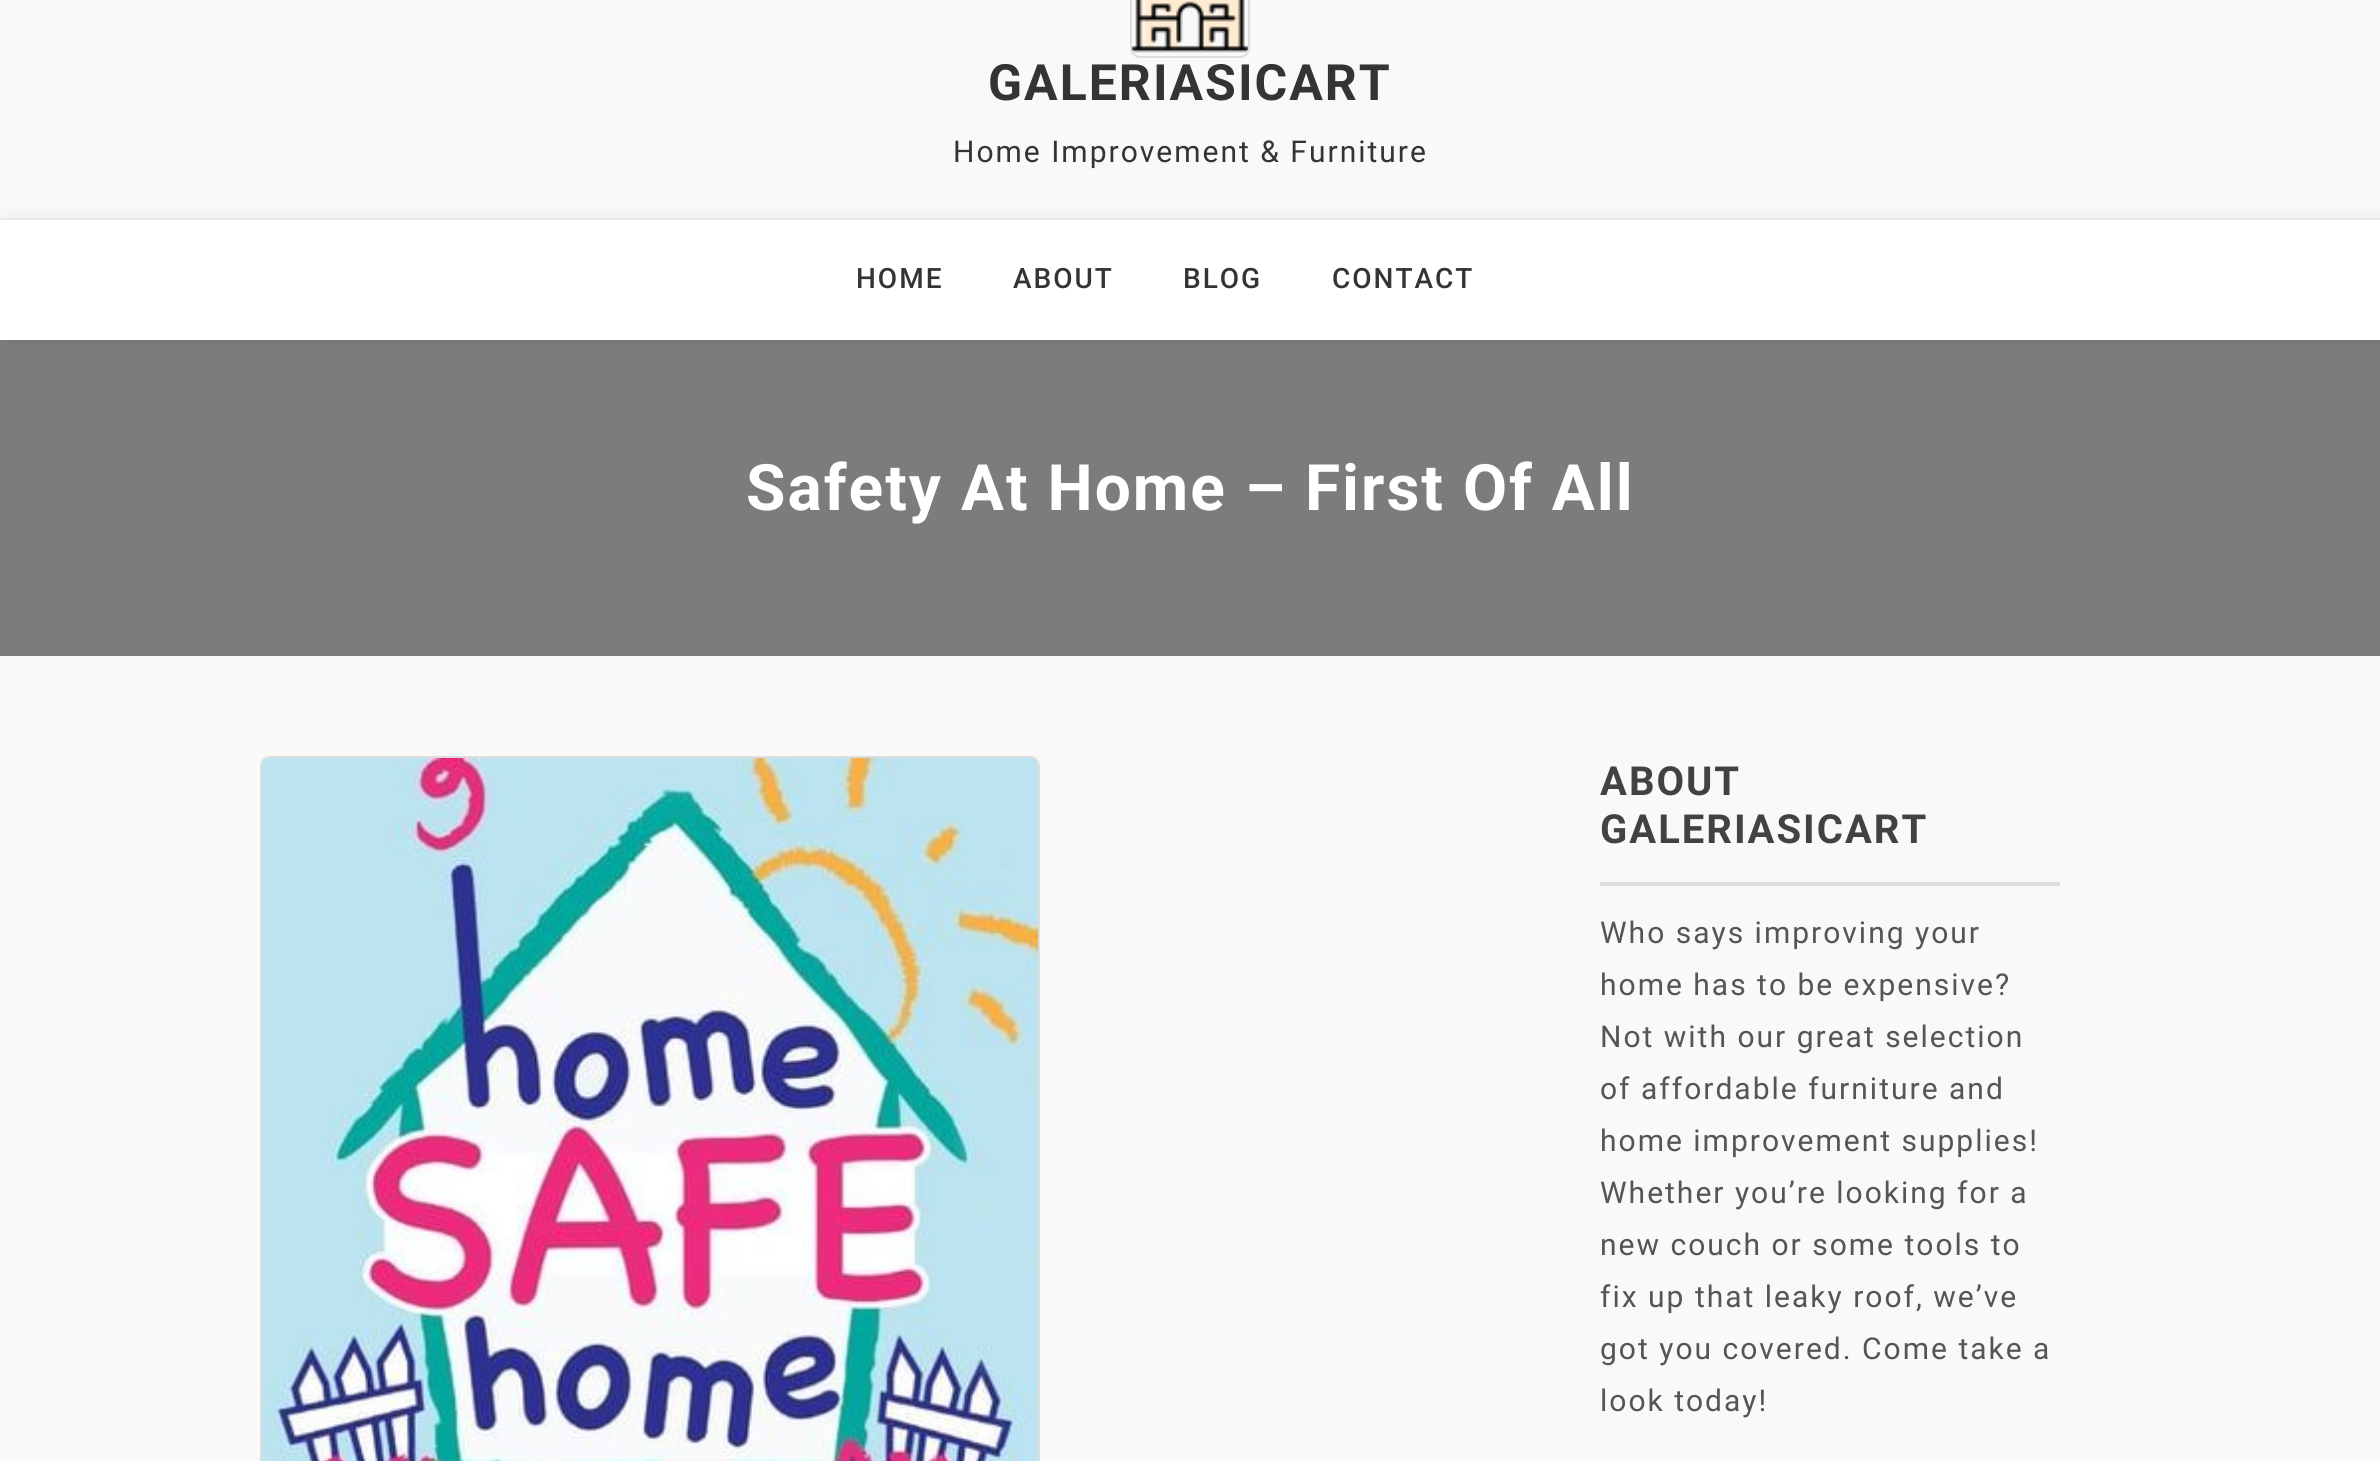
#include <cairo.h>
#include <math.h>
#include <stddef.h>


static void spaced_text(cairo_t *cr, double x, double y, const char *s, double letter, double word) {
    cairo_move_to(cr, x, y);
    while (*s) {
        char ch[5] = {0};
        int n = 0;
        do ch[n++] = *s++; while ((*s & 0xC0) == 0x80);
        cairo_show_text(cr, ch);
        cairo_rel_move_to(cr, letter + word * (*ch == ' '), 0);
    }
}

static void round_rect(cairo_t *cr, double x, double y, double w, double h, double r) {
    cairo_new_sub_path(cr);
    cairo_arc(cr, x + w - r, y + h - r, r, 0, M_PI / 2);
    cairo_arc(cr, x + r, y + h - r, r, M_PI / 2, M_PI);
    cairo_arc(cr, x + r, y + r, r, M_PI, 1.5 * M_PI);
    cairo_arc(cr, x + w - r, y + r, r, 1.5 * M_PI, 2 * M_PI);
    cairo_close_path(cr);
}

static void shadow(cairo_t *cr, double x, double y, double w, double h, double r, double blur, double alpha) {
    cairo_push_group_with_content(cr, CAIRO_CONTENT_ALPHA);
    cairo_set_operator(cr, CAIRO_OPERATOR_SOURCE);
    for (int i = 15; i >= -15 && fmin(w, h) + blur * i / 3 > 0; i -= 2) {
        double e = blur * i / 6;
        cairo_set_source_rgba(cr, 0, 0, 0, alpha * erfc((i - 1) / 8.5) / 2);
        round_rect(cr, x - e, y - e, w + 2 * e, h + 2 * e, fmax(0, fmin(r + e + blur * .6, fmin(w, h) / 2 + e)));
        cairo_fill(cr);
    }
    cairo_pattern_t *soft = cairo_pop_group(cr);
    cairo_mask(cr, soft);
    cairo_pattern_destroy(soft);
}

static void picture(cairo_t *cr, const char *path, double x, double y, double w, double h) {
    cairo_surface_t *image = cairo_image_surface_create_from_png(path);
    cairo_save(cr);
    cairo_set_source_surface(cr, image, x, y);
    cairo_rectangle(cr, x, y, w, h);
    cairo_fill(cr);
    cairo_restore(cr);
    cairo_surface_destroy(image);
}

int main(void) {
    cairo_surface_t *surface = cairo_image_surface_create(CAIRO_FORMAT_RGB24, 2380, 1461);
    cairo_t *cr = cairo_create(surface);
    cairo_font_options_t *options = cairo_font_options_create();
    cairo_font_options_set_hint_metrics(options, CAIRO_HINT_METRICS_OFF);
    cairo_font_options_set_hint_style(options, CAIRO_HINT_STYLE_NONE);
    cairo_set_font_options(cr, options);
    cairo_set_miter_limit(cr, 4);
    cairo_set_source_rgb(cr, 0.973, 0.976, 0.98);
    cairo_paint(cr);
    cairo_set_source_rgb(cr, 0.933, 0.933, 0.933);
    cairo_rectangle(cr, 0, 218, 2380, 2);
    cairo_fill(cr);
    round_rect(cr, 1131, -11, 118, 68, 9);
    cairo_set_source_rgb(cr, 0.867, 0.867, 0.867);
    cairo_stroke(cr);
    picture(cr, "img1.png", 1132, 0, 116, 53);
    cairo_select_font_face(cr, "Roboto", CAIRO_FONT_SLANT_NORMAL, CAIRO_FONT_WEIGHT_BOLD);
    cairo_set_font_size(cr, 50);
    cairo_set_source_rgb(cr, 0.204, 0.204, 0.204);
    spaced_text(cr, 988, 100, "GALERIASICART", 2, 0);
    cairo_select_font_face(cr, "Roboto", CAIRO_FONT_SLANT_NORMAL, CAIRO_FONT_WEIGHT_NORMAL);
    cairo_set_font_size(cr, 30);
    spaced_text(cr, 953, 162, "Home Improvement & Furniture", 2, 0);
    cairo_set_source_rgb(cr, 0.02, 0.02, 0.024);
    shadow(cr, 10, 220, 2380, 120, 0, 10, 0.08);
    cairo_set_source_rgb(cr, 1, 1, 1);
    cairo_rectangle(cr, 0, 220, 2380, 120);
    cairo_fill(cr);
    cairo_select_font_face(cr, "Roboto Medium", CAIRO_FONT_SLANT_NORMAL, CAIRO_FONT_WEIGHT_NORMAL);
    cairo_set_font_size(cr, 28);
    cairo_set_source_rgb(cr, 0.204, 0.204, 0.204);
    spaced_text(cr, 856, 288, "HOME", 2, 0);
    spaced_text(cr, 1013, 288, "ABOUT", 2, 0);
    spaced_text(cr, 1183, 288, "BLOG", 2, 0);
    spaced_text(cr, 1332, 288, "CONTACT", 2, 0);
    cairo_set_source_rgba(cr, 0, 0, 0, 0.5);
    cairo_rectangle(cr, 0, 340, 2380, 316);
    cairo_fill(cr);
    cairo_select_font_face(cr, "Roboto", CAIRO_FONT_SLANT_NORMAL, CAIRO_FONT_WEIGHT_BOLD);
    cairo_set_font_size(cr, 64);
    cairo_set_source_rgb(cr, 1, 1, 1);
    spaced_text(cr, 746, 510, "Safety At Home – First Of All", 2, 0);
    round_rect(cr, 261, 757, 778, 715, 9);
    cairo_set_source_rgb(cr, 0.867, 0.867, 0.867);
    cairo_stroke(cr);
    picture(cr, "img2.png", 262, 758, 776, 703);
    cairo_rectangle(cr, 1600, 882, 460, 4);
    cairo_fill(cr);
    cairo_set_font_size(cr, 40);
    cairo_set_source_rgb(cr, 0.259, 0.259, 0.259);
    spaced_text(cr, 1600, 795, "ABOUT", 2, 0);
    spaced_text(cr, 1600, 843, "GALERIASICART", 2, 0);
    cairo_select_font_face(cr, "Roboto", CAIRO_FONT_SLANT_NORMAL, CAIRO_FONT_WEIGHT_NORMAL);
    cairo_set_font_size(cr, 30);
    cairo_set_source_rgb(cr, 0.333, 0.333, 0.333);
    spaced_text(cr, 1600, 943, "Who says improving your", 2, 0);
    spaced_text(cr, 1600, 995, "home has to be expensive?", 2, 0);
    spaced_text(cr, 1600, 1047, "Not with our great selection", 2, 0);
    spaced_text(cr, 1600, 1099, "of affordable furniture and", 2, 0);
    spaced_text(cr, 1600, 1151, "home improvement supplies!", 2, 0);
    spaced_text(cr, 1600, 1203, "Whether you’re looking for a", 2, 0);
    spaced_text(cr, 1600, 1255, "new couch or some tools to", 2, 0);
    spaced_text(cr, 1600, 1307, "fix up that leaky roof, we’ve", 2, 0);
    spaced_text(cr, 1600, 1359, "got you covered. Come take a", 2, 0);
    spaced_text(cr, 1600, 1411, "look today!", 2, 0);
    cairo_surface_write_to_png(surface, "page.png");
    cairo_font_options_destroy(options);
    cairo_destroy(cr);
    cairo_surface_destroy(surface);
    return 0;
}
